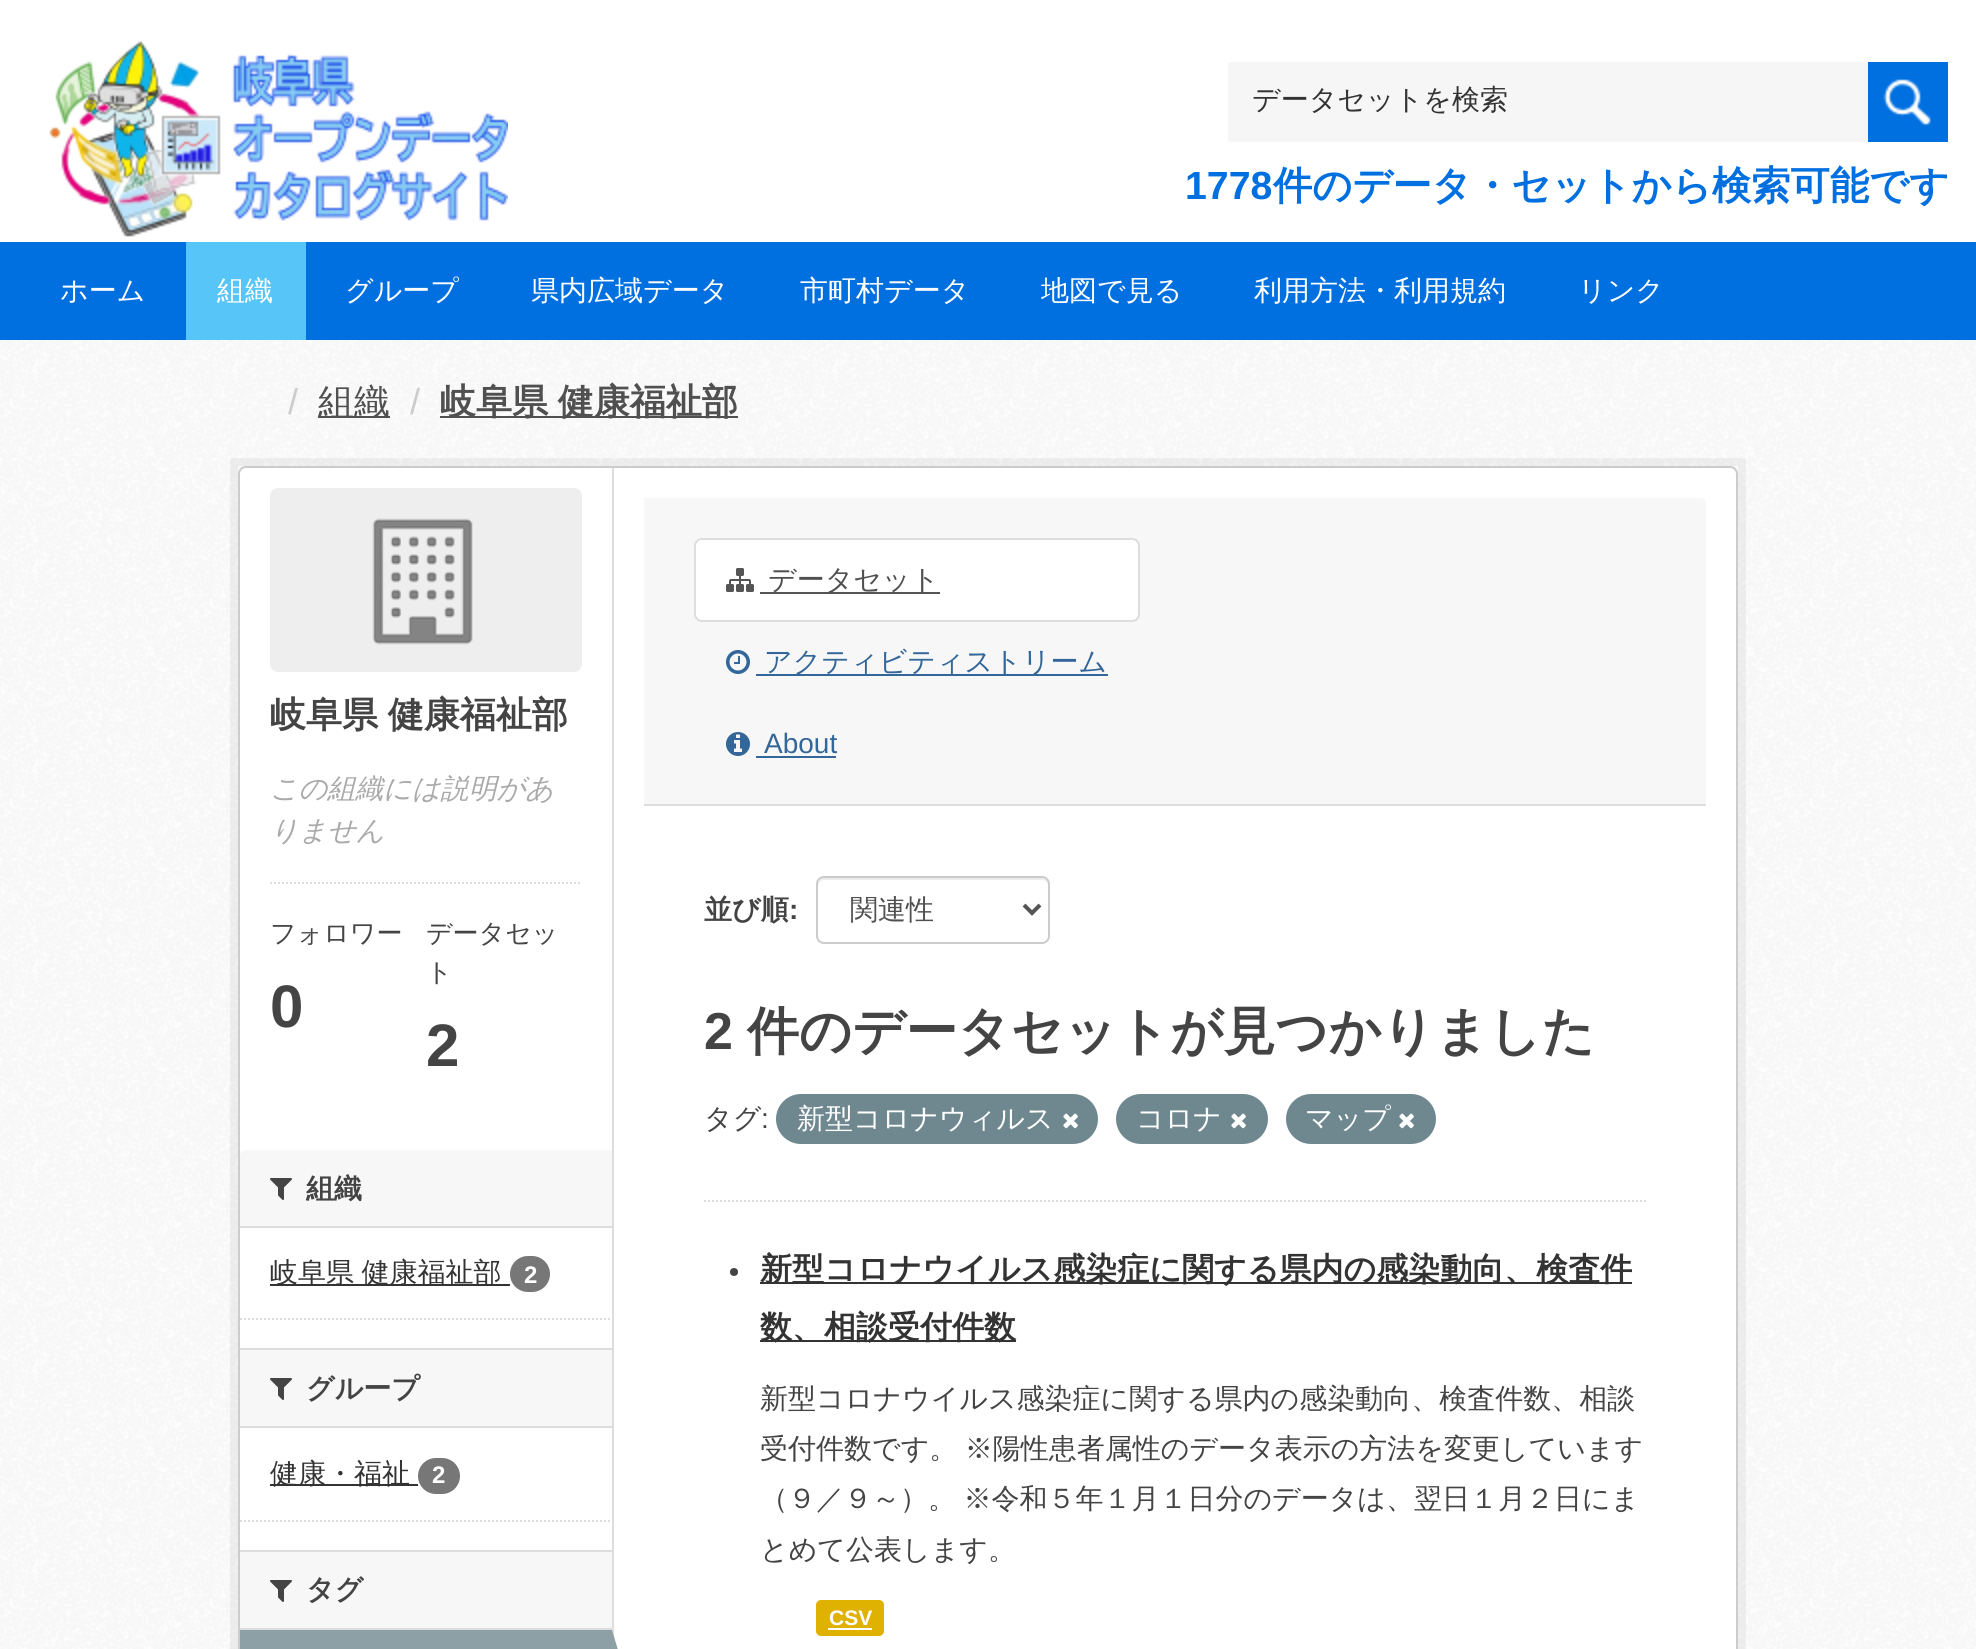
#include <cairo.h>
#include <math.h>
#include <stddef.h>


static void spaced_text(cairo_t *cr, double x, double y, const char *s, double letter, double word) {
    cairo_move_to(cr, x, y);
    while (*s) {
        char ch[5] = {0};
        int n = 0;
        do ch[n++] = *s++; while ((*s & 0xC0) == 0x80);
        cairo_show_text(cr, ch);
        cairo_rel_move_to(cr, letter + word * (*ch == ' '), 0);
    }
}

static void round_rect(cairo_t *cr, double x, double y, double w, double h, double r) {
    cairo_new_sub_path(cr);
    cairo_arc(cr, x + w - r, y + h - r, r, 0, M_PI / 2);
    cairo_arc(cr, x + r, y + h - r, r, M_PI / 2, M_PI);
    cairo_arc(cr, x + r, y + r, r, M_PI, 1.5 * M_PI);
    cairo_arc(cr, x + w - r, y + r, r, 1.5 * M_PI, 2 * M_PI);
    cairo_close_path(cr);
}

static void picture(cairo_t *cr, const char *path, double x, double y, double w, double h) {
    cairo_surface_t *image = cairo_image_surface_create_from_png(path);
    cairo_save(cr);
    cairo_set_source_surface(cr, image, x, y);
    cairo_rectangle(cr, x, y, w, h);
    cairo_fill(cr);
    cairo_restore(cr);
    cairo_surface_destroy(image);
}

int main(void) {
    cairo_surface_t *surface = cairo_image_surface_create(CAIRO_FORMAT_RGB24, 1976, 1649);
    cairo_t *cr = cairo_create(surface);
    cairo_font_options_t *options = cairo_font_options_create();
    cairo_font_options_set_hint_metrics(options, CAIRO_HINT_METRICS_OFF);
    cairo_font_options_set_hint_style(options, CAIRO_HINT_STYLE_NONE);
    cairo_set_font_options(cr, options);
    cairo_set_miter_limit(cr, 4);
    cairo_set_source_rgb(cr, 1, 1, 1);
    cairo_paint(cr);
    picture(cr, "img1.png", 49, 41, 459, 196);
    cairo_set_source_rgb(cr, 0.961, 0.961, 0.961);
    round_rect(cr, 1228, 62, 640, 80, 2);
    cairo_fill(cr);
    cairo_select_font_face(cr, "WenQuanYi Zen Hei Medium", CAIRO_FONT_SLANT_NORMAL, CAIRO_FONT_WEIGHT_NORMAL);
    cairo_set_font_size(cr, 28);
    cairo_set_source_rgb(cr, 0.2, 0.2, 0.2);
    cairo_move_to(cr, 1252, 109);
    cairo_show_text(cr, "データセットを検索");
    cairo_set_source_rgb(cr, 0, 0.435, 0.878);
    cairo_rectangle(cr, 1868, 62, 80, 80);
    cairo_fill(cr);
    picture(cr, "img2.png", 1883, 79, 48, 47);
    cairo_select_font_face(cr, "Liberation Sans", CAIRO_FONT_SLANT_NORMAL, CAIRO_FONT_WEIGHT_BOLD);
    cairo_set_font_size(cr, 39.25);
    cairo_move_to(cr, 1185, 199);
    cairo_show_text(cr, "1778");
    cairo_select_font_face(cr, "WenQuanYi Zen Hei", CAIRO_FONT_SLANT_NORMAL, CAIRO_FONT_WEIGHT_BOLD);
    cairo_move_to(cr, 1273, 199);
    cairo_show_text(cr, "件のデータ・セットから検索可能です");
    cairo_rectangle(cr, 0, 242, 1976, 98);
    cairo_fill(cr);
    cairo_select_font_face(cr, "WenQuanYi Zen Hei Medium", CAIRO_FONT_SLANT_NORMAL, CAIRO_FONT_WEIGHT_NORMAL);
    cairo_set_font_size(cr, 28);
    cairo_set_source_rgb(cr, 1, 1, 1);
    cairo_move_to(cr, 60, 300);
    cairo_show_text(cr, "ホーム");
    cairo_set_source_rgb(cr, 0.345, 0.773, 0.976);
    cairo_rectangle(cr, 186, 242, 120, 98);
    cairo_fill(cr);
    cairo_set_source_rgb(cr, 1, 1, 1);
    cairo_move_to(cr, 217, 300);
    cairo_show_text(cr, "組織");
    cairo_move_to(cr, 345, 300);
    cairo_show_text(cr, "グループ");
    cairo_move_to(cr, 531, 300);
    cairo_show_text(cr, "県内広域データ");
    cairo_move_to(cr, 800, 300);
    cairo_show_text(cr, "市町村データ");
    cairo_move_to(cr, 1041, 300);
    cairo_show_text(cr, "地図で見る");
    cairo_move_to(cr, 1254, 300);
    cairo_show_text(cr, "利用方法・利用規約");
    cairo_move_to(cr, 1578, 300);
    cairo_show_text(cr, "リンク");
    picture(cr, "img3.png", 0, 340, 1976, 1309);
    cairo_select_font_face(cr, "Liberation Sans", CAIRO_FONT_SLANT_NORMAL, CAIRO_FONT_WEIGHT_NORMAL);
    cairo_set_font_size(cr, 36);
    cairo_set_source_rgb(cr, 0.8, 0.8, 0.8);
    cairo_move_to(cr, 288, 414);
    cairo_show_text(cr, "/");
    cairo_set_source_rgb(cr, 0.314, 0.314, 0.314);
    cairo_rectangle(cr, 318, 416, 72, 2);
    cairo_fill(cr);
    cairo_select_font_face(cr, "WenQuanYi Zen Hei Medium", CAIRO_FONT_SLANT_NORMAL, CAIRO_FONT_WEIGHT_NORMAL);
    cairo_move_to(cr, 318, 414);
    cairo_show_text(cr, "組織");
    cairo_select_font_face(cr, "Liberation Sans", CAIRO_FONT_SLANT_NORMAL, CAIRO_FONT_WEIGHT_NORMAL);
    cairo_set_source_rgb(cr, 0.8, 0.8, 0.8);
    cairo_move_to(cr, 410, 414);
    cairo_show_text(cr, "/");
    cairo_set_source_rgb(cr, 0.314, 0.314, 0.314);
    cairo_rectangle(cr, 440, 416, 298, 2);
    cairo_fill(cr);
    cairo_select_font_face(cr, "WenQuanYi Zen Hei", CAIRO_FONT_SLANT_NORMAL, CAIRO_FONT_WEIGHT_BOLD);
    spaced_text(cr, 440, 414, "岐阜県 健康福祉部", 0, -1);
    cairo_rectangle(cr, 234, 462, 1508, 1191);
    cairo_set_source_rgba(cr, 0, 0, 0, 0.05);
    cairo_set_line_width(cr, 8);
    cairo_stroke(cr);
    cairo_set_source_rgb(cr, 1, 1, 1);
    round_rect(cr, 239, 467, 1498, 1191, 7);
    cairo_fill_preserve(cr);
    cairo_set_source_rgb(cr, 0.8, 0.8, 0.8);
    cairo_set_line_width(cr, 2);
    cairo_stroke(cr);
    picture(cr, "img4.png", 270, 488, 312, 184);
    cairo_set_source_rgb(cr, 0.267, 0.267, 0.267);
    spaced_text(cr, 270, 727, "岐阜県 健康福祉部", 0, -1);
    cairo_select_font_face(cr, "WenQuanYi Zen Hei Medium", CAIRO_FONT_SLANT_ITALIC, CAIRO_FONT_WEIGHT_NORMAL);
    cairo_set_font_size(cr, 28);
    cairo_set_source_rgb(cr, 0.667, 0.667, 0.667);
    cairo_move_to(cr, 270, 798);
    cairo_show_text(cr, "この組織には説明があ");
    cairo_move_to(cr, 270, 840);
    cairo_show_text(cr, "りません");
    cairo_new_path(cr);
    cairo_move_to(cr, 270, 883);
    cairo_line_to(cr, 582, 883);
    cairo_set_source_rgb(cr, 0.867, 0.867, 0.867);
    cairo_set_dash(cr, (double[]){2, 2}, 2, 0);
    cairo_stroke(cr);
    cairo_select_font_face(cr, "WenQuanYi Zen Hei Medium", CAIRO_FONT_SLANT_NORMAL, CAIRO_FONT_WEIGHT_NORMAL);
    cairo_set_font_size(cr, 26);
    cairo_set_source_rgb(cr, 0.267, 0.267, 0.267);
    cairo_move_to(cr, 270, 942);
    cairo_show_text(cr, "フォロワー");
    cairo_select_font_face(cr, "Liberation Sans", CAIRO_FONT_SLANT_NORMAL, CAIRO_FONT_WEIGHT_BOLD);
    cairo_set_font_size(cr, 60);
    cairo_move_to(cr, 270, 1027);
    cairo_show_text(cr, "0");
    cairo_select_font_face(cr, "WenQuanYi Zen Hei Medium", CAIRO_FONT_SLANT_NORMAL, CAIRO_FONT_WEIGHT_NORMAL);
    cairo_set_font_size(cr, 26);
    cairo_move_to(cr, 426, 942);
    cairo_show_text(cr, "データセッ");
    cairo_move_to(cr, 426, 981);
    cairo_show_text(cr, "ト");
    cairo_select_font_face(cr, "Liberation Sans", CAIRO_FONT_SLANT_NORMAL, CAIRO_FONT_WEIGHT_BOLD);
    cairo_set_font_size(cr, 60);
    cairo_move_to(cr, 426, 1066);
    cairo_show_text(cr, "2");
    cairo_set_source_rgb(cr, 0.965, 0.965, 0.965);
    cairo_new_path(cr);
    cairo_move_to(cr, 246, 1150);
    cairo_line_to(cr, 612, 1150);
    cairo_line_to(cr, 612, 1228);
    cairo_line_to(cr, 240, 1228);
    cairo_line_to(cr, 240, 1156);
    cairo_curve_to(cr, 240, 1152.5, 242.5, 1150, 246, 1150);
    cairo_close_path(cr);
    cairo_fill(cr);
    cairo_set_source_rgb(cr, 0.867, 0.867, 0.867);
    cairo_rectangle(cr, 240, 1226, 372, 2);
    cairo_fill(cr);
    picture(cr, "img5.png", 270, 1178, 22, 22);
    cairo_select_font_face(cr, "WenQuanYi Zen Hei", CAIRO_FONT_SLANT_NORMAL, CAIRO_FONT_WEIGHT_BOLD);
    cairo_set_font_size(cr, 28);
    cairo_set_source_rgb(cr, 0.267, 0.267, 0.267);
    cairo_move_to(cr, 306, 1198);
    cairo_show_text(cr, "組織");
    cairo_set_source_rgb(cr, 0.2, 0.2, 0.2);
    cairo_rectangle(cr, 270, 1284, 240, 2);
    cairo_fill(cr);
    cairo_select_font_face(cr, "WenQuanYi Zen Hei Medium", CAIRO_FONT_SLANT_NORMAL, CAIRO_FONT_WEIGHT_NORMAL);
    spaced_text(cr, 270, 1282, "岐阜県 健康福祉部", 0, -1);
    cairo_set_source_rgb(cr, 0.467, 0.467, 0.467);
    round_rect(cr, 510, 1256, 40, 36, 18);
    cairo_fill(cr);
    cairo_select_font_face(cr, "Liberation Sans", CAIRO_FONT_SLANT_NORMAL, CAIRO_FONT_WEIGHT_BOLD);
    cairo_set_font_size(cr, 24);
    cairo_set_source_rgb(cr, 1, 1, 1);
    cairo_move_to(cr, 524, 1283);
    cairo_show_text(cr, "2");
    cairo_new_path(cr);
    cairo_move_to(cr, 240, 1319);
    cairo_line_to(cr, 612, 1319);
    cairo_set_source_rgb(cr, 0.867, 0.867, 0.867);
    cairo_stroke(cr);
    cairo_set_source_rgb(cr, 0.965, 0.965, 0.965);
    cairo_rectangle(cr, 240, 1350, 372, 76);
    cairo_fill(cr);
    cairo_set_source_rgb(cr, 0.867, 0.867, 0.867);
    cairo_rectangle(cr, 240, 1348, 372, 2);
    cairo_fill(cr);
    cairo_rectangle(cr, 240, 1426, 372, 2);
    cairo_fill(cr);
    picture(cr, "img5.png", 270, 1378, 22, 22);
    cairo_select_font_face(cr, "WenQuanYi Zen Hei", CAIRO_FONT_SLANT_NORMAL, CAIRO_FONT_WEIGHT_BOLD);
    cairo_set_font_size(cr, 28);
    cairo_set_source_rgb(cr, 0.267, 0.267, 0.267);
    cairo_move_to(cr, 306, 1398);
    cairo_show_text(cr, "グループ");
    cairo_set_source_rgb(cr, 0.2, 0.2, 0.2);
    cairo_rectangle(cr, 270, 1484, 148, 2);
    cairo_fill(cr);
    cairo_select_font_face(cr, "WenQuanYi Zen Hei Medium", CAIRO_FONT_SLANT_NORMAL, CAIRO_FONT_WEIGHT_NORMAL);
    cairo_move_to(cr, 270, 1483);
    cairo_show_text(cr, "健康・福祉");
    cairo_set_source_rgb(cr, 0.467, 0.467, 0.467);
    round_rect(cr, 418, 1458, 42, 36, 18);
    cairo_fill(cr);
    cairo_select_font_face(cr, "Liberation Sans", CAIRO_FONT_SLANT_NORMAL, CAIRO_FONT_WEIGHT_BOLD);
    cairo_set_font_size(cr, 24);
    cairo_set_source_rgb(cr, 1, 1, 1);
    cairo_move_to(cr, 432, 1483);
    cairo_show_text(cr, "2");
    cairo_new_path(cr);
    cairo_move_to(cr, 240, 1521);
    cairo_line_to(cr, 612, 1521);
    cairo_set_source_rgb(cr, 0.867, 0.867, 0.867);
    cairo_stroke(cr);
    cairo_set_source_rgb(cr, 0.965, 0.965, 0.965);
    cairo_rectangle(cr, 240, 1552, 372, 76);
    cairo_fill(cr);
    cairo_set_source_rgb(cr, 0.867, 0.867, 0.867);
    cairo_rectangle(cr, 240, 1550, 372, 2);
    cairo_fill(cr);
    cairo_rectangle(cr, 240, 1628, 372, 2);
    cairo_fill(cr);
    picture(cr, "img5.png", 270, 1580, 22, 22);
    cairo_select_font_face(cr, "WenQuanYi Zen Hei", CAIRO_FONT_SLANT_NORMAL, CAIRO_FONT_WEIGHT_BOLD);
    cairo_set_font_size(cr, 28);
    cairo_set_source_rgb(cr, 0.267, 0.267, 0.267);
    cairo_move_to(cr, 306, 1599);
    cairo_show_text(cr, "タグ");
    cairo_set_source_rgb(cr, 0.549, 0.627, 0.651);
    cairo_rectangle(cr, 240, 1630, 372, 19);
    cairo_fill(cr);
    cairo_set_source_rgb(cr, 0.867, 0.867, 0.867);
    cairo_rectangle(cr, 612, 468, 2, 1169);
    cairo_fill(cr);
    cairo_set_source_rgb(cr, 0.549, 0.627, 0.651);
    cairo_new_path(cr);
    cairo_move_to(cr, 612, 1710);
    cairo_line_to(cr, 612, 1630);
    cairo_line_to(cr, 624, 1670);
    cairo_close_path(cr);
    cairo_fill(cr);
    cairo_set_source_rgb(cr, 0.965, 0.965, 0.965);
    cairo_new_path(cr);
    cairo_move_to(cr, 644, 498);
    cairo_line_to(cr, 1700, 498);
    cairo_curve_to(cr, 1703.5, 498, 1706, 500.5, 1706, 504);
    cairo_line_to(cr, 1706, 806);
    cairo_line_to(cr, 644, 806);
    cairo_close_path(cr);
    cairo_fill(cr);
    cairo_set_source_rgb(cr, 0.867, 0.867, 0.867);
    cairo_rectangle(cr, 644, 804, 1062, 2);
    cairo_fill(cr);
    cairo_set_source_rgb(cr, 1, 1, 1);
    round_rect(cr, 695, 539, 444, 82, 7);
    cairo_fill_preserve(cr);
    cairo_set_source_rgb(cr, 0.867, 0.867, 0.867);
    cairo_set_dash(cr, NULL, 0, 0);
    cairo_stroke(cr);
    picture(cr, "img6.png", 726, 568, 28, 24);
    cairo_set_source_rgb(cr, 0.333, 0.333, 0.333);
    cairo_rectangle(cr, 760, 592, 180, 2);
    cairo_fill(cr);
    cairo_select_font_face(cr, "WenQuanYi Zen Hei Medium", CAIRO_FONT_SLANT_NORMAL, CAIRO_FONT_WEIGHT_NORMAL);
    cairo_set_source_rgb(cr, 0.314, 0.314, 0.314);
    cairo_move_to(cr, 768, 589);
    cairo_show_text(cr, "データセット");
    picture(cr, "img7.png", 726, 650, 24, 24);
    cairo_set_source_rgb(cr, 0.2, 0.4, 0.6);
    cairo_rectangle(cr, 756, 674, 352, 2);
    cairo_fill(cr);
    cairo_move_to(cr, 764, 671);
    cairo_show_text(cr, "アクティビティストリーム");
    picture(cr, "img8.png", 726, 732, 24, 24);
    cairo_select_font_face(cr, "Liberation Sans", CAIRO_FONT_SLANT_NORMAL, CAIRO_FONT_WEIGHT_NORMAL);
    cairo_move_to(cr, 764, 753);
    cairo_show_text(cr, "About");
    cairo_rectangle(cr, 756, 756, 80, 2);
    cairo_fill(cr);
    cairo_new_path(cr);
    cairo_move_to(cr, 704, 1201);
    cairo_line_to(cr, 1646, 1201);
    cairo_set_source_rgb(cr, 0.867, 0.867, 0.867);
    cairo_set_dash(cr, (double[]){2, 2}, 2, 0);
    cairo_stroke(cr);
    cairo_select_font_face(cr, "WenQuanYi Zen Hei", CAIRO_FONT_SLANT_NORMAL, CAIRO_FONT_WEIGHT_BOLD);
    cairo_set_source_rgb(cr, 0.267, 0.267, 0.267);
    cairo_move_to(cr, 704, 919);
    cairo_show_text(cr, "並び順");
    cairo_select_font_face(cr, "Liberation Sans", CAIRO_FONT_SLANT_NORMAL, CAIRO_FONT_WEIGHT_BOLD);
    cairo_move_to(cr, 789, 919);
    cairo_show_text(cr, ":");
    cairo_set_source_rgb(cr, 0.925, 0.925, 0.925);
    cairo_new_path(cr);
    cairo_move_to(cr, 824, 880);
    cairo_line_to(cr, 1042, 880);
    cairo_curve_to(cr, 1045, 880, 1048, 883, 1048, 886);
    cairo_line_to(cr, 1048, 884);
    cairo_curve_to(cr, 1048, 881, 1045, 878, 1042, 878);
    cairo_line_to(cr, 824, 878);
    cairo_curve_to(cr, 821, 878, 818, 881, 818, 884);
    cairo_line_to(cr, 818, 886);
    cairo_curve_to(cr, 818, 883, 821, 880, 824, 880);
    cairo_close_path(cr);
    cairo_fill(cr);
    round_rect(cr, 817, 877, 232, 66, 7);
    cairo_set_source_rgb(cr, 0.8, 0.8, 0.8);
    cairo_set_dash(cr, NULL, 0, 0);
    cairo_stroke(cr);
    cairo_new_path(cr);
    cairo_move_to(cr, 1024, 905);
    cairo_line_to(cr, 1032, 913);
    cairo_line_to(cr, 1040, 905);
    cairo_set_source_rgb(cr, 0.333, 0.333, 0.333);
    cairo_set_line_width(cr, 4);
    cairo_stroke(cr);
    cairo_select_font_face(cr, "WenQuanYi Zen Hei Medium", CAIRO_FONT_SLANT_NORMAL, CAIRO_FONT_WEIGHT_NORMAL);
    cairo_set_source_rgb(cr, 0.314, 0.314, 0.314);
    cairo_move_to(cr, 850, 919);
    cairo_show_text(cr, "関連性");
    cairo_select_font_face(cr, "Liberation Sans", CAIRO_FONT_SLANT_NORMAL, CAIRO_FONT_WEIGHT_BOLD);
    cairo_set_font_size(cr, 52);
    cairo_set_source_rgb(cr, 0.267, 0.267, 0.267);
    cairo_move_to(cr, 704, 1049);
    cairo_show_text(cr, "2");
    cairo_select_font_face(cr, "WenQuanYi Zen Hei", CAIRO_FONT_SLANT_NORMAL, CAIRO_FONT_WEIGHT_BOLD);
    cairo_move_to(cr, 747, 1049);
    cairo_show_text(cr, "件のデータセットが見つかりました");
    cairo_select_font_face(cr, "WenQuanYi Zen Hei Medium", CAIRO_FONT_SLANT_NORMAL, CAIRO_FONT_WEIGHT_NORMAL);
    cairo_set_font_size(cr, 28);
    cairo_move_to(cr, 704, 1128);
    cairo_show_text(cr, "タグ");
    cairo_select_font_face(cr, "Liberation Sans", CAIRO_FONT_SLANT_NORMAL, CAIRO_FONT_WEIGHT_NORMAL);
    cairo_move_to(cr, 761, 1128);
    cairo_show_text(cr, ":");
    cairo_set_source_rgb(cr, 0.435, 0.533, 0.565);
    round_rect(cr, 776, 1094, 322, 50, 25);
    cairo_fill(cr);
    cairo_select_font_face(cr, "WenQuanYi Zen Hei Medium", CAIRO_FONT_SLANT_NORMAL, CAIRO_FONT_WEIGHT_NORMAL);
    cairo_set_source_rgb(cr, 1, 1, 1);
    cairo_move_to(cr, 797, 1128);
    cairo_show_text(cr, "新型コロナウィルス");
    picture(cr, "img9.png", 1063, 1113, 15, 16);
    cairo_set_source_rgb(cr, 0.435, 0.533, 0.565);
    round_rect(cr, 1116, 1094, 152, 50, 25);
    cairo_fill(cr);
    cairo_set_source_rgb(cr, 1, 1, 1);
    cairo_move_to(cr, 1136, 1128);
    cairo_show_text(cr, "コロナ");
    picture(cr, "img9.png", 1231, 1113, 15, 16);
    cairo_set_source_rgb(cr, 0.435, 0.533, 0.565);
    round_rect(cr, 1286, 1094, 150, 50, 25);
    cairo_fill(cr);
    cairo_set_source_rgb(cr, 1, 1, 1);
    cairo_move_to(cr, 1305, 1128);
    cairo_show_text(cr, "マップ");
    picture(cr, "img9.png", 1399, 1113, 15, 16);
    cairo_set_source_rgb(cr, 0.267, 0.267, 0.267);
    cairo_arc(cr, 734, 1272, 4, 0, 2 * M_PI);
    cairo_fill(cr);
    cairo_set_source_rgb(cr, 0.2, 0.2, 0.2);
    cairo_rectangle(cr, 760, 1282, 872, 2);
    cairo_fill(cr);
    cairo_select_font_face(cr, "WenQuanYi Zen Hei", CAIRO_FONT_SLANT_NORMAL, CAIRO_FONT_WEIGHT_BOLD);
    cairo_set_font_size(cr, 32);
    cairo_move_to(cr, 760, 1280);
    cairo_show_text(cr, "新型コロナウイルス感染症に関する県内の感染動向、検査件");
    cairo_rectangle(cr, 760, 1340, 256, 2);
    cairo_fill(cr);
    cairo_move_to(cr, 760, 1338);
    cairo_show_text(cr, "数、相談受付件数");
    cairo_select_font_face(cr, "WenQuanYi Zen Hei Medium", CAIRO_FONT_SLANT_NORMAL, CAIRO_FONT_WEIGHT_NORMAL);
    cairo_set_font_size(cr, 28);
    cairo_set_source_rgb(cr, 0.267, 0.267, 0.267);
    cairo_move_to(cr, 760, 1408);
    cairo_show_text(cr, "新型コロナウイルス感染症に関する県内の感染動向、検査件数、相談");
    spaced_text(cr, 760, 1458, "受付件数です。 ※陽性患者属性のデータ表示の方法を変更しています", 0, -1);
    spaced_text(cr, 760, 1508, "（９／９～）。 ※令和５年１月１日分のデータは、翌日１月２日にま", 0, -1);
    cairo_move_to(cr, 760, 1559);
    cairo_show_text(cr, "とめて公表します。");
    cairo_set_source_rgb(cr, 0.875, 0.694, 0);
    round_rect(cr, 816, 1600, 68, 36, 5);
    cairo_fill(cr);
    cairo_select_font_face(cr, "Liberation Sans", CAIRO_FONT_SLANT_NORMAL, CAIRO_FONT_WEIGHT_BOLD);
    cairo_set_font_size(cr, 21);
    cairo_set_source_rgb(cr, 1, 1, 1);
    cairo_move_to(cr, 829, 1625);
    cairo_show_text(cr, "CSV");
    cairo_rectangle(cr, 828, 1628, 44, 2);
    cairo_fill(cr);
    cairo_surface_write_to_png(surface, "page.png");
    cairo_font_options_destroy(options);
    cairo_destroy(cr);
    cairo_surface_destroy(surface);
    return 0;
}
